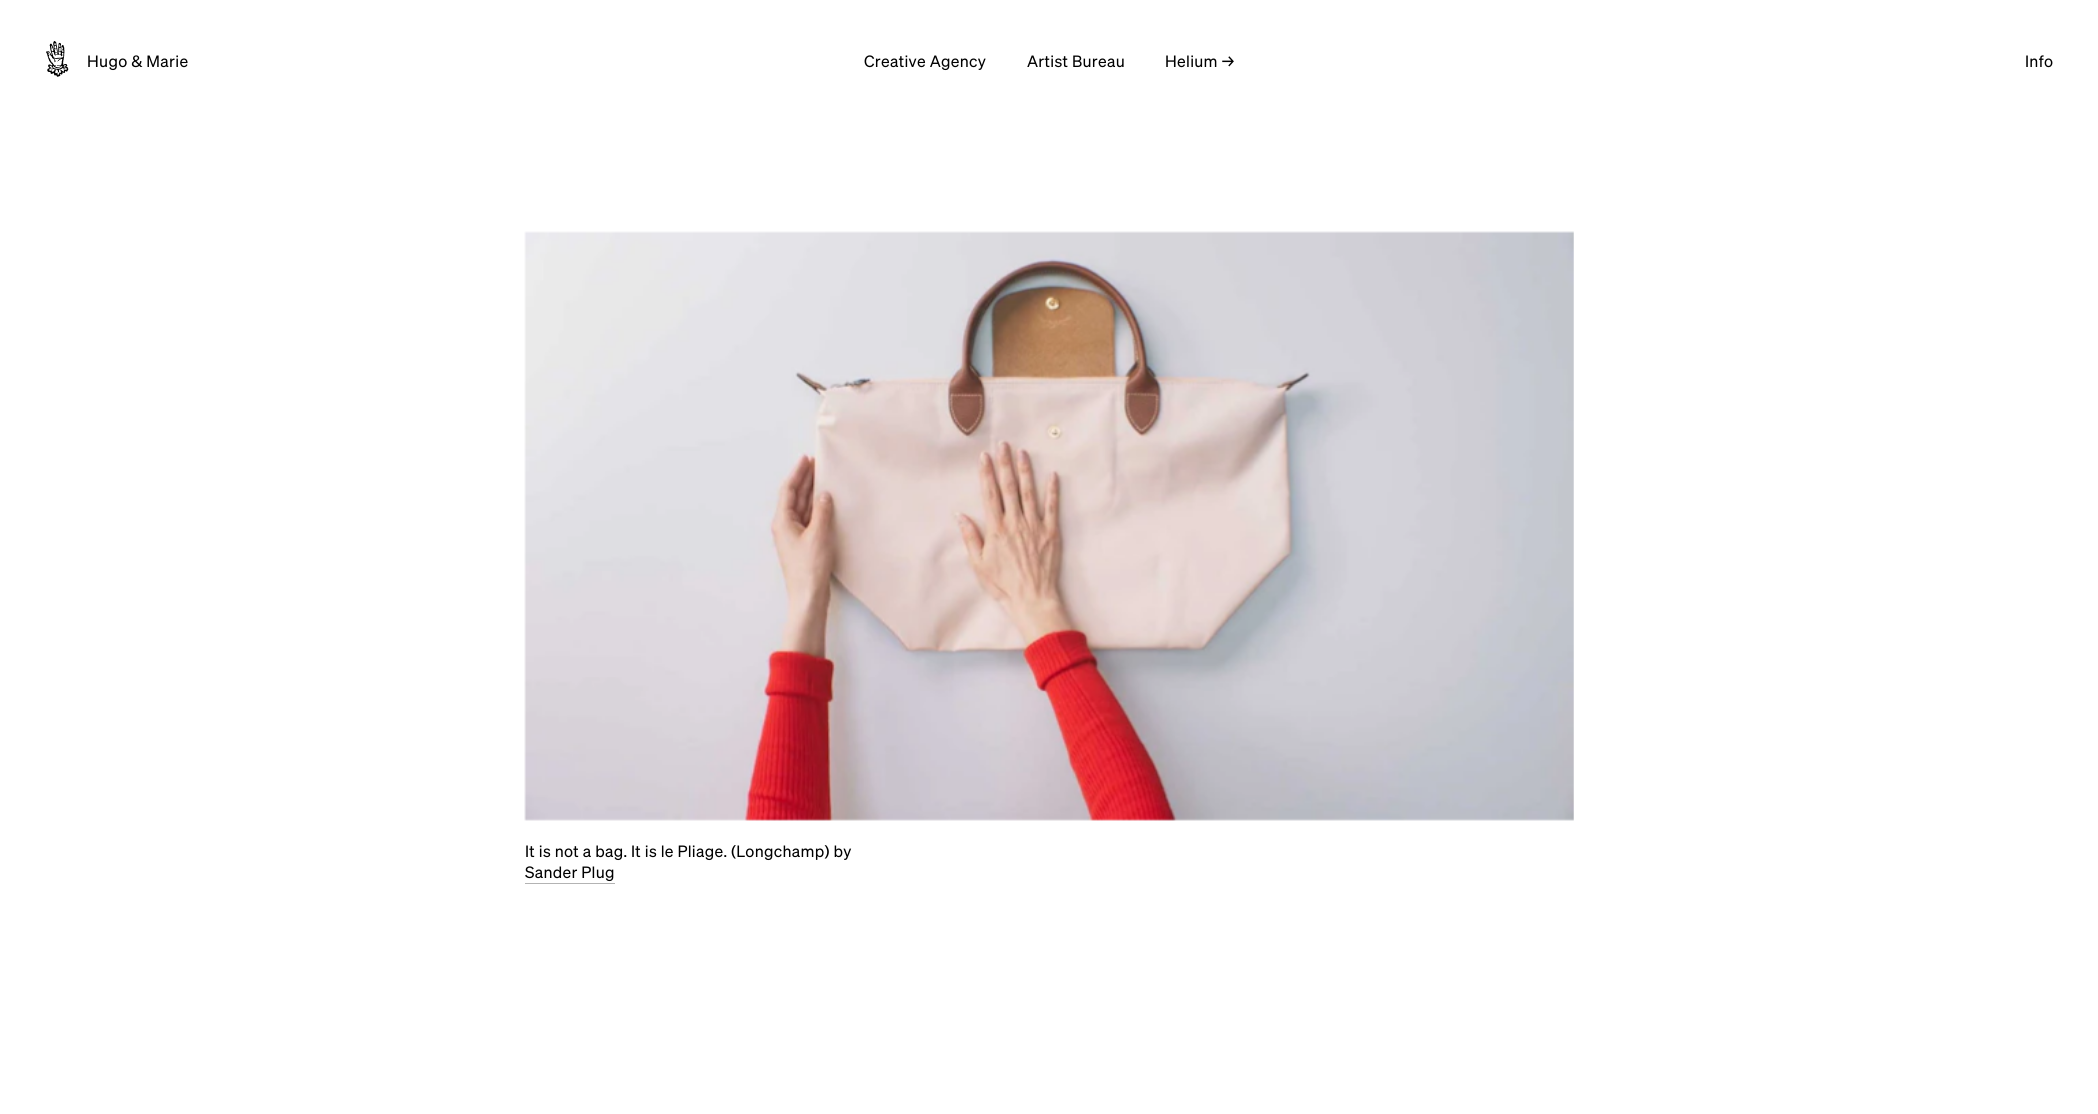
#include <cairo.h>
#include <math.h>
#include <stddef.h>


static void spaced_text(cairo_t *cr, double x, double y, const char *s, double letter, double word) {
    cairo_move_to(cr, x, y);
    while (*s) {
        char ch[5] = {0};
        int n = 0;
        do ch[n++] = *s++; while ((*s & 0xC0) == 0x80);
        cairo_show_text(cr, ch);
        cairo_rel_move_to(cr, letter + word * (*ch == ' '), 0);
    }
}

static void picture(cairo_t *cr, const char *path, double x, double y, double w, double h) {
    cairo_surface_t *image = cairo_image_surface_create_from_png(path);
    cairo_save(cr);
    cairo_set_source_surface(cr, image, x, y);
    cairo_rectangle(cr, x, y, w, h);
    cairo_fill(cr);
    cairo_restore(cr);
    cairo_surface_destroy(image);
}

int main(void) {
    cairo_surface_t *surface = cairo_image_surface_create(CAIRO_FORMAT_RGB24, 2098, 1114);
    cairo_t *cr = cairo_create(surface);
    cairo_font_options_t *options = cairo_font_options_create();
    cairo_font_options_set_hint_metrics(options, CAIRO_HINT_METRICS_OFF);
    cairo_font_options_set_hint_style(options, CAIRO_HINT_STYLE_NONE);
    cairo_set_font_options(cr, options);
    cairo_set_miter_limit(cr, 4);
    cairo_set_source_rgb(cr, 1, 1, 1);
    cairo_paint(cr);
    picture(cr, "img1.png", 46, 41, 23, 36);
    cairo_select_font_face(cr, "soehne", CAIRO_FONT_SLANT_NORMAL, CAIRO_FONT_WEIGHT_NORMAL);
    cairo_set_font_size(cr, 16);
    cairo_set_source_rgb(cr, 0, 0, 0);
    spaced_text(cr, 87, 67, "Hugo & Marie", 0.3, 0);
    spaced_text(cr, 864, 67, "Creative Agency", 0.3, 0);
    spaced_text(cr, 1027, 67, "Artist Bureau", 0.3, 0);
    spaced_text(cr, 1165, 67, "Helium", 0.3, 0);
    picture(cr, "img2.png", 1222, 56, 12, 11);
    spaced_text(cr, 2025, 67, "Info", 0.3, 0);
    picture(cr, "img3.png", 524, 231, 1050, 590);
    spaced_text(cr, 525, 857, "It is not a bag. It is le Pliage. (Longchamp) by", 0.3, 0);
    spaced_text(cr, 525, 878, "Sander Plug", 0.3, 0);
    cairo_set_source_rgb(cr, 0.702, 0.702, 0.702);
    cairo_rectangle(cr, 525, 883, 90, 1);
    cairo_fill(cr);
    cairo_surface_write_to_png(surface, "page.png");
    cairo_font_options_destroy(options);
    cairo_destroy(cr);
    cairo_surface_destroy(surface);
    return 0;
}
